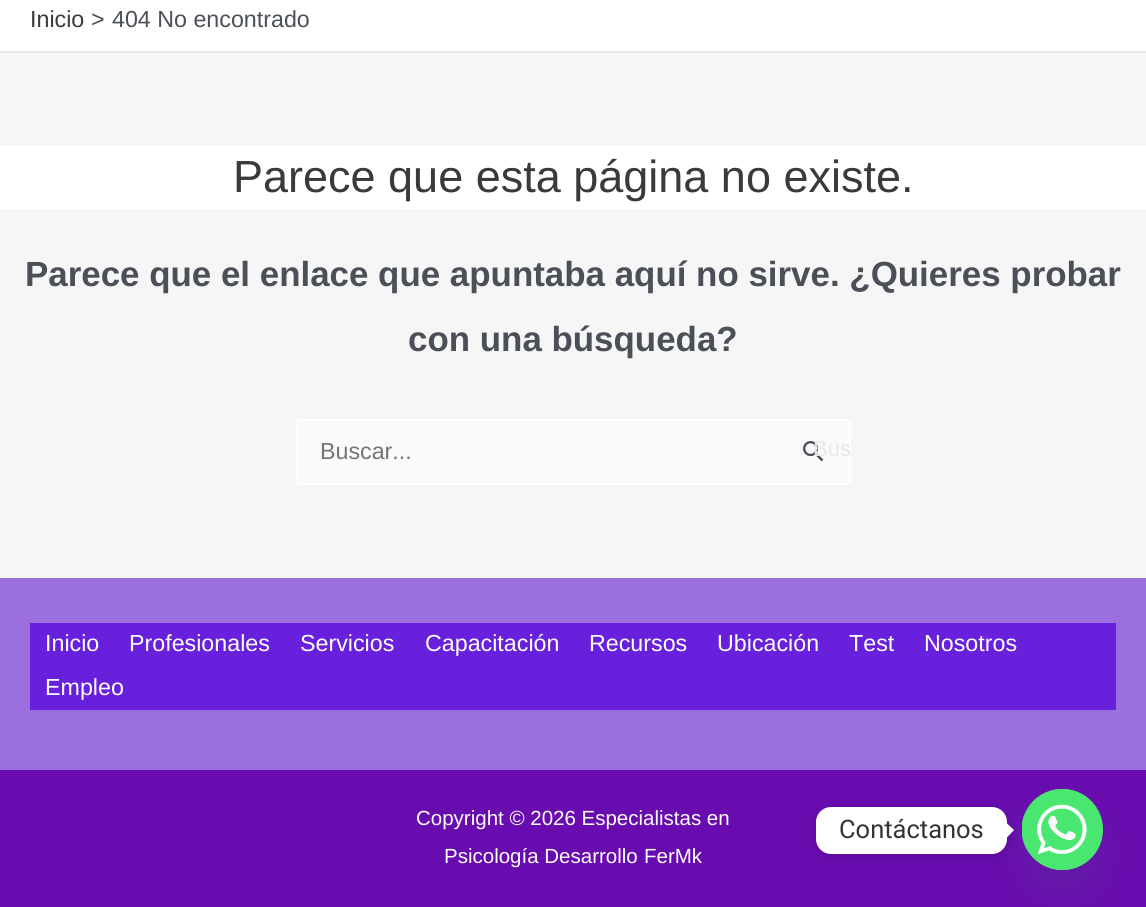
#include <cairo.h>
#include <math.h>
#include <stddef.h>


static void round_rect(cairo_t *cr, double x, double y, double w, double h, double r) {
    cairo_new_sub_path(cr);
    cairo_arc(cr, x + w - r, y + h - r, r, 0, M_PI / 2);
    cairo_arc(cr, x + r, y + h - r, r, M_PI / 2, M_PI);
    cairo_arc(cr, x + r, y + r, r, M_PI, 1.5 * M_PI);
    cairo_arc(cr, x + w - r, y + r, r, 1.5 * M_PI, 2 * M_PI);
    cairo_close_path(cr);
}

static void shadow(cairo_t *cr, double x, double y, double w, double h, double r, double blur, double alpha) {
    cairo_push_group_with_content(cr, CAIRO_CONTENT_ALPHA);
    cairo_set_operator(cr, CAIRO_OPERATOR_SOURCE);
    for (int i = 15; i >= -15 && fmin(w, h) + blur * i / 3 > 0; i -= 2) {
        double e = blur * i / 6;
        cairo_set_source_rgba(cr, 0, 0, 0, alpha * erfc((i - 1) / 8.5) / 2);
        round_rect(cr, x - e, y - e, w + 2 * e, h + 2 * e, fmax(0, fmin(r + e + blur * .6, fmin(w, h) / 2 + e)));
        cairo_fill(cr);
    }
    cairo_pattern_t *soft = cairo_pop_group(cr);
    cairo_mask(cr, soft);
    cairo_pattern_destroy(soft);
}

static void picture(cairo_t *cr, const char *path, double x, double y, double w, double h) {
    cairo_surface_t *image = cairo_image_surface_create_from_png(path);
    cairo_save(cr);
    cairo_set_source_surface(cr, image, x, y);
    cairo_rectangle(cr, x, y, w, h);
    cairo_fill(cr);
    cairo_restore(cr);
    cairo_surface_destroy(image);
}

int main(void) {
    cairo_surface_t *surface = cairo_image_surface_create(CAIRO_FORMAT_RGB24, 1146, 907);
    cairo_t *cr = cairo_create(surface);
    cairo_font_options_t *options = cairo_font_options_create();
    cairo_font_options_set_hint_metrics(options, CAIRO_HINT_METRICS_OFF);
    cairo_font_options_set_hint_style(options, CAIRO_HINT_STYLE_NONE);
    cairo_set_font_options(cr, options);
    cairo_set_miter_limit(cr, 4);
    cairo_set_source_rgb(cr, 0.961, 0.961, 0.961);
    cairo_paint(cr);
    cairo_set_source_rgb(cr, 1, 1, 1);
    cairo_rectangle(cr, 0, 0, 1146, 51);
    cairo_fill(cr);
    cairo_set_source_rgb(cr, 0.918, 0.918, 0.918);
    cairo_rectangle(cr, 0, 51, 1146, 2);
    cairo_fill(cr);
    cairo_select_font_face(cr, "Liberation Sans", CAIRO_FONT_SLANT_NORMAL, CAIRO_FONT_WEIGHT_NORMAL);
    cairo_set_font_size(cr, 23.25);
    cairo_set_source_rgb(cr, 0.227, 0.227, 0.227);
    cairo_move_to(cr, 30, 27);
    cairo_show_text(cr, "Inicio");
    cairo_set_source_rgb(cr, 0.294, 0.31, 0.345);
    cairo_move_to(cr, 91, 27);
    cairo_show_text(cr, ">");
    cairo_move_to(cr, 112, 27);
    cairo_show_text(cr, "404 No encontrado");
    cairo_set_source_rgb(cr, 1, 1, 1);
    cairo_rectangle(cr, 0, 146, 1146, 63);
    cairo_fill(cr);
    cairo_set_font_size(cr, 45);
    cairo_set_source_rgb(cr, 0.227, 0.227, 0.227);
    cairo_move_to(cr, 233, 192);
    cairo_show_text(cr, "Parece que esta página no existe.");
    cairo_select_font_face(cr, "Liberation Sans", CAIRO_FONT_SLANT_NORMAL, CAIRO_FONT_WEIGHT_BOLD);
    cairo_set_font_size(cr, 34.9);
    cairo_set_source_rgb(cr, 0.294, 0.31, 0.345);
    cairo_move_to(cr, 25, 286);
    cairo_show_text(cr, "Parece que el enlace que apuntaba aquí no sirve. ¿Quieres probar");
    cairo_move_to(cr, 408, 351);
    cairo_show_text(cr, "con una búsqueda?");
    cairo_set_source_rgb(cr, 0.98, 0.98, 0.98);
    round_rect(cr, 297, 420, 553, 64, 2);
    cairo_fill_preserve(cr);
    cairo_set_source_rgb(cr, 0.996, 0.996, 0.996);
    cairo_stroke(cr);
    cairo_select_font_face(cr, "Liberation Sans", CAIRO_FONT_SLANT_NORMAL, CAIRO_FONT_WEIGHT_NORMAL);
    cairo_set_font_size(cr, 23.25);
    cairo_set_source_rgb(cr, 0.459, 0.459, 0.459);
    cairo_move_to(cr, 320, 459);
    cairo_show_text(cr, "Buscar...");
    picture(cr, "img1.png", 803, 441, 21, 21);
    cairo_set_font_size(cr, 22);
    cairo_set_source_rgb(cr, 0.906, 0.91, 0.914);
    cairo_move_to(cr, 813, 456);
    cairo_show_text(cr, "Bus");
    cairo_set_source_rgb(cr, 0.612, 0.435, 0.875);
    cairo_rectangle(cr, 0, 578, 1146, 192);
    cairo_fill(cr);
    cairo_set_source_rgb(cr, 0.408, 0.125, 0.863);
    cairo_rectangle(cr, 30, 623, 1086, 87);
    cairo_fill(cr);
    cairo_set_font_size(cr, 23.25);
    cairo_set_source_rgb(cr, 0.996, 0.996, 0.996);
    cairo_move_to(cr, 45, 651);
    cairo_show_text(cr, "Inicio");
    cairo_move_to(cr, 129, 651);
    cairo_show_text(cr, "Profesionales");
    cairo_move_to(cr, 300, 651);
    cairo_show_text(cr, "Servicios");
    cairo_move_to(cr, 425, 651);
    cairo_show_text(cr, "Capacitación");
    cairo_move_to(cr, 589, 651);
    cairo_show_text(cr, "Recursos");
    cairo_move_to(cr, 717, 651);
    cairo_show_text(cr, "Ubicación");
    cairo_move_to(cr, 849, 651);
    cairo_show_text(cr, "Test");
    cairo_move_to(cr, 924, 651);
    cairo_show_text(cr, "Nosotros");
    cairo_move_to(cr, 45, 695);
    cairo_show_text(cr, "Empleo");
    cairo_set_source_rgb(cr, 0.408, 0.047, 0.686);
    cairo_rectangle(cr, 0, 770, 1146, 137);
    cairo_fill(cr);
    cairo_set_font_size(cr, 20.5);
    cairo_set_source_rgb(cr, 0.996, 0.996, 0.996);
    cairo_move_to(cr, 416, 825);
    cairo_show_text(cr, "Copyright © 2026 Especialistas en");
    cairo_move_to(cr, 444, 863);
    cairo_show_text(cr, "Psicología Desarrollo");
    cairo_move_to(cr, 644, 863);
    cairo_show_text(cr, "FerMk");
    cairo_set_source_rgb(cr, 0.286, 0.408, 0.494);
    shadow(cr, 1022, 813, 81, 81, 40.5, 18, 0.16);
    cairo_set_source_rgb(cr, 0.286, 0.902, 0.439);
    cairo_arc(cr, 1062.5, 829.5, 40.5, 0, 2 * M_PI);
    cairo_fill(cr);
    picture(cr, "img2.png", 1022, 789, 81, 81);
    cairo_set_source_rgb(cr, 0, 0, 0);
    shadow(cr, 816, 809, 191, 46, 15, 6, 0.15);
    cairo_set_source_rgb(cr, 1, 1, 1);
    round_rect(cr, 816, 807, 191, 47, 15);
    cairo_fill(cr);
    cairo_select_font_face(cr, "Roboto", CAIRO_FONT_SLANT_NORMAL, CAIRO_FONT_WEIGHT_NORMAL);
    cairo_set_font_size(cr, 25.5);
    cairo_set_source_rgb(cr, 0.2, 0.2, 0.2);
    cairo_move_to(cr, 839, 838);
    cairo_show_text(cr, "Contáctanos");
    cairo_set_source_rgb(cr, 1, 1, 1);
    cairo_new_path(cr);
    cairo_move_to(cr, 1006.5, 838);
    cairo_line_to(cr, 1006.5, 823);
    cairo_line_to(cr, 1014, 830);
    cairo_close_path(cr);
    cairo_fill(cr);
    cairo_surface_write_to_png(surface, "page.png");
    cairo_font_options_destroy(options);
    cairo_destroy(cr);
    cairo_surface_destroy(surface);
    return 0;
}
